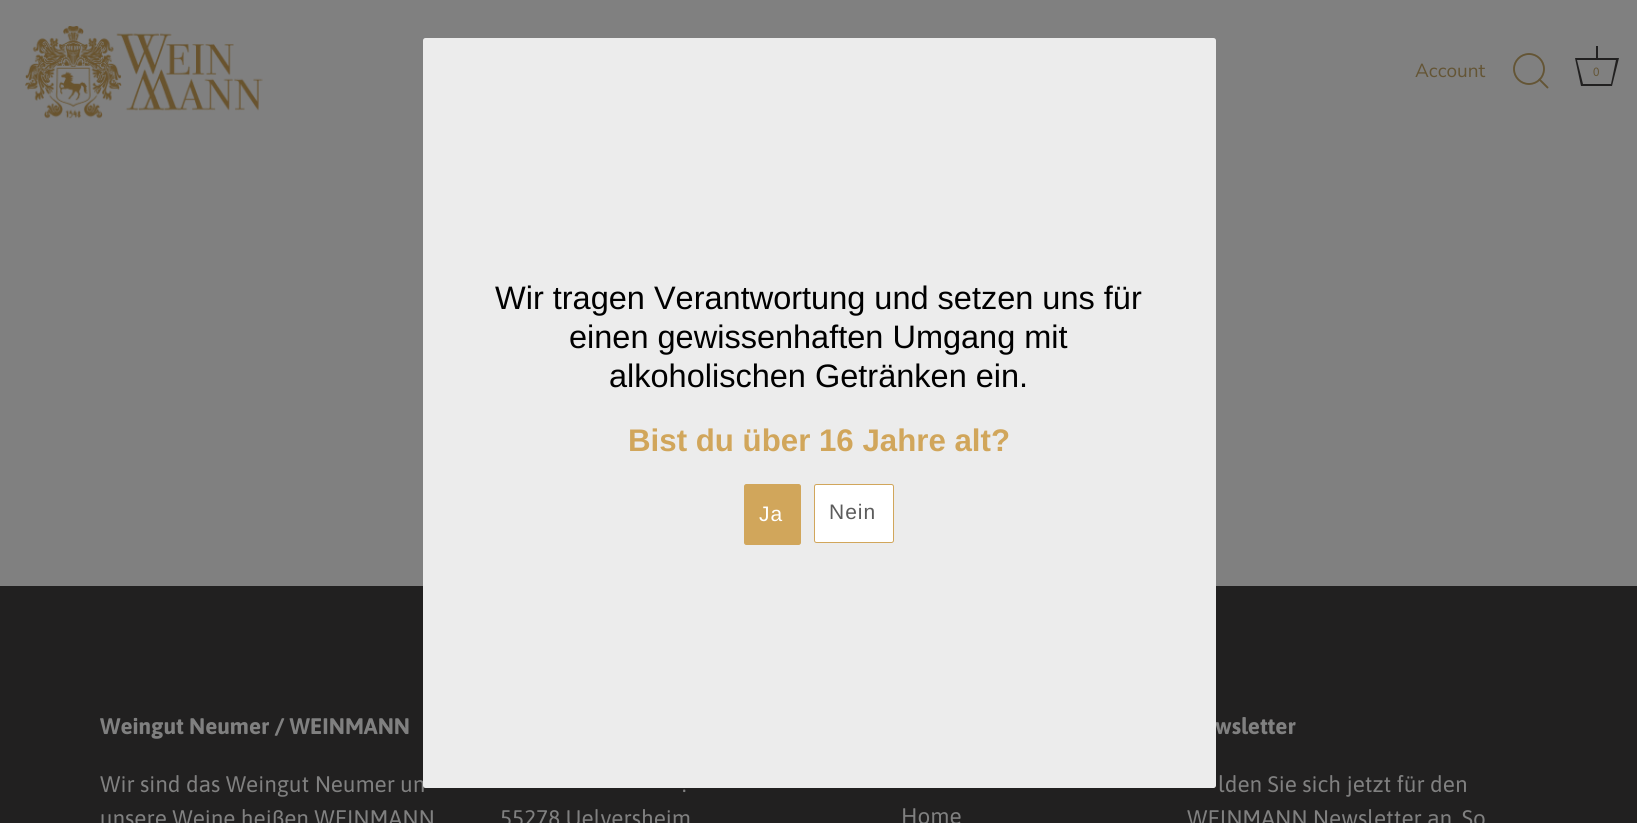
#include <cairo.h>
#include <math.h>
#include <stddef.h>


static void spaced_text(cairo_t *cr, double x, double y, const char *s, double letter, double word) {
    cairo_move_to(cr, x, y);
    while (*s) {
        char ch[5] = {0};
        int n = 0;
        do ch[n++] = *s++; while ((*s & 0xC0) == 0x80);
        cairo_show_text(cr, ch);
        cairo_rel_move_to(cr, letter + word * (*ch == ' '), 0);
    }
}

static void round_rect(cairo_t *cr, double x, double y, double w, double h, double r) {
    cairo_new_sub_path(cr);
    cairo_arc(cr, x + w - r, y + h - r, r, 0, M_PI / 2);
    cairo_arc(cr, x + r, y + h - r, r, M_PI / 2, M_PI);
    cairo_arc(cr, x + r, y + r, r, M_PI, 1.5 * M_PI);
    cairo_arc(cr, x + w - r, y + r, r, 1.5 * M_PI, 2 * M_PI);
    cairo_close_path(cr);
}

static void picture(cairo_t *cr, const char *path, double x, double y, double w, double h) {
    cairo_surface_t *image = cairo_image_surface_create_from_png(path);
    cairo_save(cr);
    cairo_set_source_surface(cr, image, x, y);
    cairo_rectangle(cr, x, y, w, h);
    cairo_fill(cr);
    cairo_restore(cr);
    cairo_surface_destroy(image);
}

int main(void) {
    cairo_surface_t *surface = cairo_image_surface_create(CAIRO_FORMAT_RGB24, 1637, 823);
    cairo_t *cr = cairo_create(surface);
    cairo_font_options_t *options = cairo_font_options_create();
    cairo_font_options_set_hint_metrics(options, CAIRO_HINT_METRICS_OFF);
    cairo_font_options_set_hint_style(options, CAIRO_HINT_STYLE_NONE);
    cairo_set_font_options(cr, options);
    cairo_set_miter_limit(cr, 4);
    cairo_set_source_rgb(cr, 0.502, 0.502, 0.502);
    cairo_paint(cr);
    picture(cr, "img1.png", 25, 26, 238, 93);
    cairo_select_font_face(cr, "Nunito Sans", CAIRO_FONT_SLANT_NORMAL, CAIRO_FONT_WEIGHT_NORMAL);
    cairo_set_font_size(cr, 19);
    cairo_set_source_rgb(cr, 0.392, 0.333, 0.208);
    cairo_move_to(cr, 1415, 77);
    cairo_show_text(cr, "Account");
    cairo_new_path(cr);
    cairo_arc(cr, 1529, 69, 15, 0, 2 * M_PI);
    cairo_set_line_width(cr, 1.9);
    cairo_stroke(cr);
    cairo_new_path(cr);
    cairo_move_to(cr, 1547.5, 87.5);
    cairo_line_to(cr, 1539.5, 79.5);
    cairo_set_line_cap(cr, CAIRO_LINE_CAP_ROUND);
    cairo_set_line_join(cr, CAIRO_LINE_JOIN_ROUND);
    cairo_stroke(cr);
    cairo_set_source_rgb(cr, 0.129, 0.125, 0.125);
    cairo_rectangle(cr, 1596, 46, 2, 12);
    cairo_fill(cr);
    cairo_new_path(cr);
    cairo_move_to(cr, 1616, 60);
    cairo_line_to(cr, 1611, 84);
    cairo_line_to(cr, 1583, 84);
    cairo_line_to(cr, 1577, 60);
    cairo_line_to(cr, 1616, 60);
    cairo_move_to(cr, 1619, 58);
    cairo_line_to(cr, 1575, 58);
    cairo_line_to(cr, 1581, 86);
    cairo_line_to(cr, 1612, 86);
    cairo_close_path(cr);
    cairo_fill(cr);
    cairo_select_font_face(cr, "Asap", CAIRO_FONT_SLANT_NORMAL, CAIRO_FONT_WEIGHT_NORMAL);
    cairo_set_font_size(cr, 12);
    cairo_set_source_rgb(cr, 0.392, 0.333, 0.208);
    cairo_move_to(cr, 1593, 76);
    cairo_show_text(cr, "0");
    cairo_set_source_rgb(cr, 0.129, 0.125, 0.125);
    cairo_rectangle(cr, 0, 586, 1637, 237);
    cairo_fill(cr);
    cairo_set_font_size(cr, 22.5);
    cairo_set_source_rgb(cr, 0.502, 0.502, 0.502);
    cairo_move_to(cr, 100, 792);
    cairo_show_text(cr, "Wir sind das Weingut Neumer un");
    cairo_select_font_face(cr, "Asap", CAIRO_FONT_SLANT_NORMAL, CAIRO_FONT_WEIGHT_BOLD);
    cairo_move_to(cr, 1215, 734);
    cairo_show_text(cr, "wsletter");
    cairo_set_source_rgb(cr, 0.925, 0.925, 0.925);
    round_rect(cr, 423, 38, 793, 750, 2.5);
    cairo_fill(cr);
    cairo_select_font_face(cr, "Liberation Sans", CAIRO_FONT_SLANT_NORMAL, CAIRO_FONT_WEIGHT_NORMAL);
    cairo_set_font_size(cr, 32.5);
    cairo_set_source_rgb(cr, 0, 0, 0);
    cairo_move_to(cr, 495, 309);
    cairo_show_text(cr, "Wir tragen Verantwortung und setzen uns für");
    cairo_move_to(cr, 569, 348);
    cairo_show_text(cr, "einen gewissenhaften Umgang mit");
    cairo_move_to(cr, 609, 387);
    cairo_show_text(cr, "alkoholischen Getränken ein.");
    cairo_select_font_face(cr, "Liberation Sans", CAIRO_FONT_SLANT_NORMAL, CAIRO_FONT_WEIGHT_BOLD);
    cairo_set_font_size(cr, 31.25);
    cairo_set_source_rgb(cr, 0.82, 0.651, 0.357);
    cairo_move_to(cr, 628, 451);
    cairo_show_text(cr, "Bist du über 16 Jahre alt?");
    round_rect(cr, 744.5, 484.5, 56, 60, 2);
    cairo_fill_preserve(cr);
    cairo_set_line_width(cr, 1);
    cairo_set_line_cap(cr, CAIRO_LINE_CAP_BUTT);
    cairo_set_line_join(cr, CAIRO_LINE_JOIN_MITER);
    cairo_stroke(cr);
    cairo_select_font_face(cr, "Liberation Sans", CAIRO_FONT_SLANT_NORMAL, CAIRO_FONT_WEIGHT_NORMAL);
    cairo_set_font_size(cr, 21);
    cairo_set_source_rgb(cr, 1, 1, 1);
    spaced_text(cr, 759, 521, "Ja", 1, 0);
    round_rect(cr, 814.5, 484.5, 79, 58, 2);
    cairo_fill_preserve(cr);
    cairo_set_source_rgb(cr, 0.82, 0.651, 0.357);
    cairo_stroke(cr);
    cairo_set_source_rgb(cr, 0.361, 0.361, 0.361);
    spaced_text(cr, 829, 519, "Nein", 1, 0);
    cairo_select_font_face(cr, "Asap", CAIRO_FONT_SLANT_NORMAL, CAIRO_FONT_WEIGHT_BOLD);
    cairo_set_font_size(cr, 22.5);
    cairo_set_source_rgb(cr, 0.502, 0.502, 0.502);
    cairo_move_to(cr, 100, 734);
    cairo_show_text(cr, "Weingut Neumer / WEINMANN");
    cairo_select_font_face(cr, "Asap", CAIRO_FONT_SLANT_NORMAL, CAIRO_FONT_WEIGHT_NORMAL);
    cairo_move_to(cr, 100, 826);
    cairo_show_text(cr, "unsere Weine heißen WEINMANN");
    cairo_move_to(cr, 682, 792);
    cairo_show_text(cr, ".");
    cairo_move_to(cr, 500, 826);
    cairo_show_text(cr, "55278 Uelversheim");
    cairo_move_to(cr, 901, 824);
    cairo_show_text(cr, "Home");
    cairo_move_to(cr, 1218, 792);
    cairo_show_text(cr, "lden Sie sich jetzt für den");
    cairo_move_to(cr, 1187, 826);
    cairo_show_text(cr, "WEINMANN Newsletter an. So");
    cairo_surface_write_to_png(surface, "page.png");
    cairo_font_options_destroy(options);
    cairo_destroy(cr);
    cairo_surface_destroy(surface);
    return 0;
}
